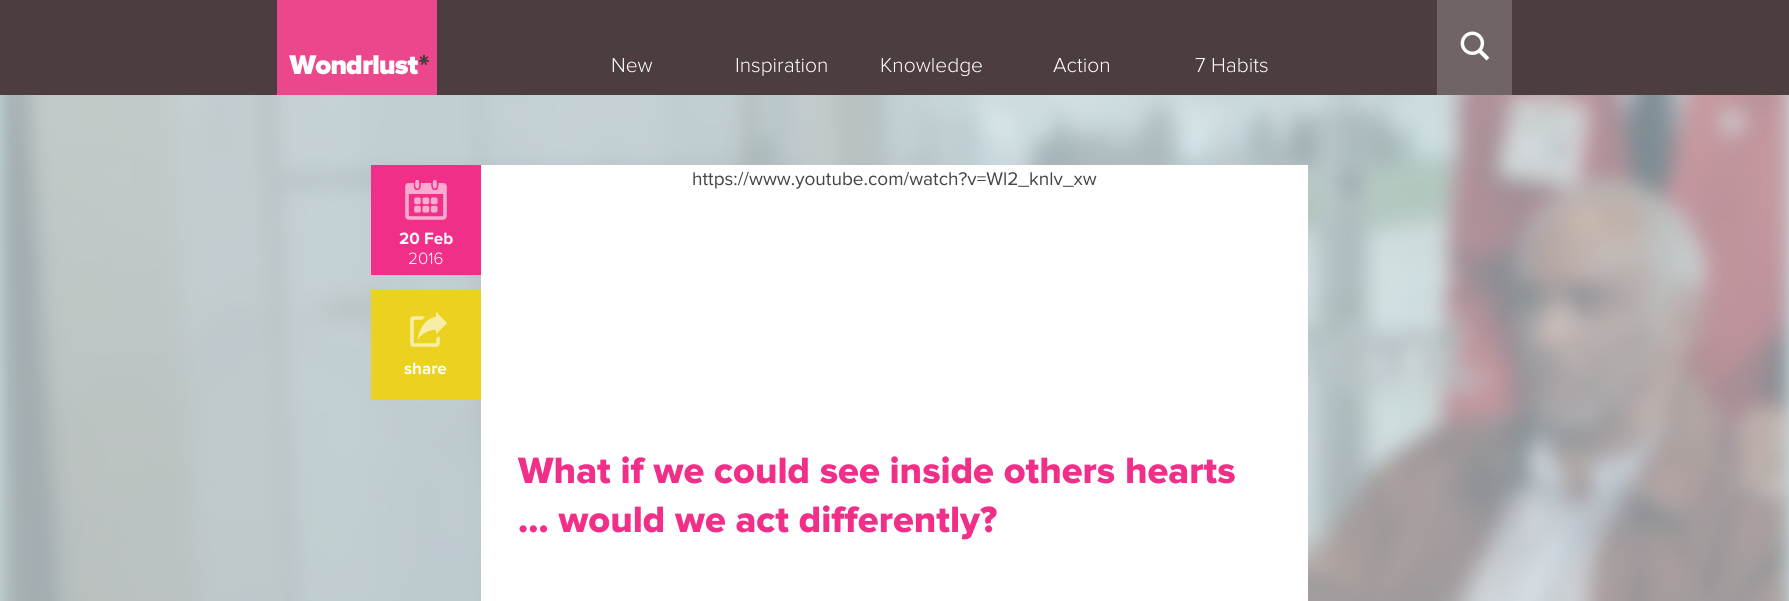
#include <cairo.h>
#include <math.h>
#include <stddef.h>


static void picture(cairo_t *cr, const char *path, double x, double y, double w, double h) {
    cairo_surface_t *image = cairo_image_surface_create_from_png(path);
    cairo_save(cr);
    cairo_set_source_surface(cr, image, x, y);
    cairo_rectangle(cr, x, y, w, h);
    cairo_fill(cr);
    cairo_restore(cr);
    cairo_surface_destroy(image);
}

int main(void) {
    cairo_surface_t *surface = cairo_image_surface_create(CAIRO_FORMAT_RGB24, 1789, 601);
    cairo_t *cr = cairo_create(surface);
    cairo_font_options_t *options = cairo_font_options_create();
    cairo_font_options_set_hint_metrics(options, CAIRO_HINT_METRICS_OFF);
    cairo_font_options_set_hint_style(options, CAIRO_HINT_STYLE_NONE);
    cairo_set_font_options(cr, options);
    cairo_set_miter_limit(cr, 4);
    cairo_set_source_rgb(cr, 0.824, 0.898, 0.91);
    cairo_paint(cr);
    cairo_set_source_rgb(cr, 0.298, 0.239, 0.247);
    cairo_rectangle(cr, 0, 0, 1789, 95);
    cairo_fill(cr);
    cairo_set_source_rgb(cr, 0.922, 0.275, 0.549);
    cairo_rectangle(cr, 277, 0, 160, 95);
    cairo_fill(cr);
    picture(cr, "img1.png", 289, 55, 140, 20);
    cairo_select_font_face(cr, "Proxima Nova Light", CAIRO_FONT_SLANT_NORMAL, CAIRO_FONT_WEIGHT_NORMAL);
    cairo_set_font_size(cr, 21);
    cairo_set_source_rgb(cr, 1, 1, 1);
    cairo_move_to(cr, 611, 72);
    cairo_show_text(cr, "New");
    cairo_move_to(cr, 735, 72);
    cairo_show_text(cr, "Inspiration");
    cairo_move_to(cr, 880, 72);
    cairo_show_text(cr, "Knowledge");
    cairo_move_to(cr, 1053, 72);
    cairo_show_text(cr, "Action");
    cairo_move_to(cr, 1195, 72);
    cairo_show_text(cr, "7 Habits");
    cairo_set_source_rgb(cr, 0.439, 0.392, 0.396);
    cairo_rectangle(cr, 1437, 0, 75, 95);
    cairo_fill(cr);
    picture(cr, "img2.png", 1460, 31, 30, 30);
    picture(cr, "img3.png", 0, 95, 1789, 506);
    cairo_set_source_rgb(cr, 1, 1, 1);
    cairo_rectangle(cr, 481, 165, 827, 436);
    cairo_fill(cr);
    cairo_select_font_face(cr, "Proxima Nova", CAIRO_FONT_SLANT_NORMAL, CAIRO_FONT_WEIGHT_NORMAL);
    cairo_set_font_size(cr, 19);
    cairo_set_source_rgb(cr, 0.267, 0.267, 0.267);
    cairo_move_to(cr, 692, 185);
    cairo_show_text(cr, "https://www.youtube.com/watch?v=Wl2_knlv_xw");
    cairo_set_source_rgb(cr, 0.945, 0.184, 0.533);
    cairo_rectangle(cr, 371, 165, 110, 110);
    cairo_fill(cr);
    picture(cr, "img4.png", 405, 180, 42, 40);
    cairo_select_font_face(cr, "Proxima Nova", CAIRO_FONT_SLANT_NORMAL, CAIRO_FONT_WEIGHT_BOLD);
    cairo_set_font_size(cr, 17);
    cairo_set_source_rgb(cr, 1, 1, 1);
    cairo_move_to(cr, 399, 244);
    cairo_show_text(cr, "20 Feb");
    cairo_select_font_face(cr, "Proxima Nova Light", CAIRO_FONT_SLANT_NORMAL, CAIRO_FONT_WEIGHT_NORMAL);
    cairo_move_to(cr, 408, 264);
    cairo_show_text(cr, "2016");
    cairo_set_source_rgb(cr, 0.922, 0.824, 0.125);
    cairo_rectangle(cr, 371, 290, 110, 110);
    cairo_fill(cr);
    picture(cr, "img5.png", 410, 312, 37, 35);
    cairo_select_font_face(cr, "Proxima Nova", CAIRO_FONT_SLANT_NORMAL, CAIRO_FONT_WEIGHT_BOLD);
    cairo_set_source_rgb(cr, 1, 1, 1);
    cairo_move_to(cr, 404, 374);
    cairo_show_text(cr, "share");
    cairo_select_font_face(cr, "Proxima Nova ExtraBold", CAIRO_FONT_SLANT_NORMAL, CAIRO_FONT_WEIGHT_NORMAL);
    cairo_set_font_size(cr, 38);
    cairo_set_source_rgb(cr, 0.945, 0.184, 0.533);
    cairo_move_to(cr, 518, 483);
    cairo_show_text(cr, "What if we could see inside others hearts");
    cairo_move_to(cr, 518, 532);
    cairo_show_text(cr, "… would we act differently?");
    cairo_surface_write_to_png(surface, "page.png");
    cairo_font_options_destroy(options);
    cairo_destroy(cr);
    cairo_surface_destroy(surface);
    return 0;
}
